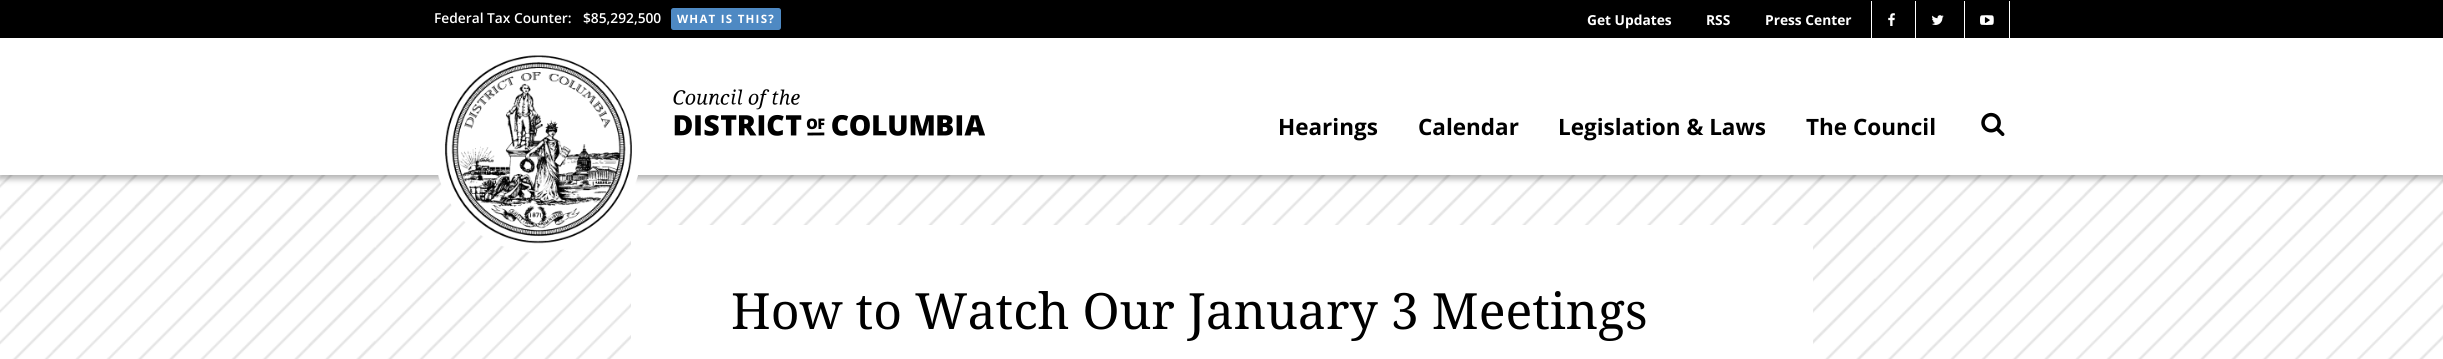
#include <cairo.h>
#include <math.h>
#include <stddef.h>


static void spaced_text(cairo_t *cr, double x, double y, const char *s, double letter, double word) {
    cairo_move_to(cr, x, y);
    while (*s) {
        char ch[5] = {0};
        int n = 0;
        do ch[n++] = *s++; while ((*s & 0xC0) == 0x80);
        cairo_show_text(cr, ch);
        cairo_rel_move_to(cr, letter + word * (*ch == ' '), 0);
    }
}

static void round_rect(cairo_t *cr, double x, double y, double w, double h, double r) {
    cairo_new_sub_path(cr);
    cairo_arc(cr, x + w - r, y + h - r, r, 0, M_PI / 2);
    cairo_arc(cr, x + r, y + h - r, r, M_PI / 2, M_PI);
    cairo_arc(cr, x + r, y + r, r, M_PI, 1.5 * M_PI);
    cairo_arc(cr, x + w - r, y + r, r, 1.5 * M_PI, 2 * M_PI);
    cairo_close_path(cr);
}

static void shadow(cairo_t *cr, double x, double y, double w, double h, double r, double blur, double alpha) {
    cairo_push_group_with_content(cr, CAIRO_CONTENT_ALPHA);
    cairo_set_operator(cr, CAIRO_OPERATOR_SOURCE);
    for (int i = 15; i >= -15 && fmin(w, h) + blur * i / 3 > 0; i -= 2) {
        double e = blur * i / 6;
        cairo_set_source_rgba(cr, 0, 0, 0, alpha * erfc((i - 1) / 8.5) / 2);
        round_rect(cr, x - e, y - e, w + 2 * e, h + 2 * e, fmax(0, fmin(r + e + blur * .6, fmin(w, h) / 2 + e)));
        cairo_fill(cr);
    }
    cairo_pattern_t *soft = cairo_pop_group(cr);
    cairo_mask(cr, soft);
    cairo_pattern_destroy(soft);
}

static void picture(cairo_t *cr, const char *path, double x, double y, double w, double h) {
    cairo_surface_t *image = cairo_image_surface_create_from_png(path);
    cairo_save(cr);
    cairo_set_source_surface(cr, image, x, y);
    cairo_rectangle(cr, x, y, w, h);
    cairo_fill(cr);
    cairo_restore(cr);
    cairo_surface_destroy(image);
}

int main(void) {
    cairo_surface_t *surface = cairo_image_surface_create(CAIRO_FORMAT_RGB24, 2443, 359);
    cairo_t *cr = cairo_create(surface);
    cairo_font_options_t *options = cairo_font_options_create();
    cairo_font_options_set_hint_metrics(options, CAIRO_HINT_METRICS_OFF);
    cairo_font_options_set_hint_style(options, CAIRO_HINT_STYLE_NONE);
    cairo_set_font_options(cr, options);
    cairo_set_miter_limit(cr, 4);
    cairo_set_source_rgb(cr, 1, 1, 1);
    cairo_paint(cr);
    cairo_set_source_rgb(cr, 0, 0, 0);
    cairo_rectangle(cr, 0, 0, 2443, 38);
    cairo_fill(cr);
    cairo_select_font_face(cr, "Open Sans SemiBold", CAIRO_FONT_SLANT_NORMAL, CAIRO_FONT_WEIGHT_NORMAL);
    cairo_set_font_size(cr, 13.75);
    cairo_set_source_rgb(cr, 1, 1, 1);
    cairo_move_to(cr, 434, 23);
    cairo_show_text(cr, "Federal Tax Counter:");
    cairo_move_to(cr, 583, 23);
    cairo_show_text(cr, "$85,292,500");
    picture(cr, "img7.png", 0, 175, 2443, 184);
    cairo_set_source_rgb(cr, 0, 0, 0);
    shadow(cr, -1, 39, 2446, 140, 0, 3, 0.3);
    cairo_set_source_rgb(cr, 0.306, 0.537, 0.765);
    round_rect(cr, 671, 8, 110, 22, 2.5);
    cairo_fill(cr);
    cairo_select_font_face(cr, "Open Sans", CAIRO_FONT_SLANT_NORMAL, CAIRO_FONT_WEIGHT_BOLD);
    cairo_set_font_size(cr, 11.5);
    cairo_set_source_rgb(cr, 1, 1, 1);
    spaced_text(cr, 677, 23, "WHAT IS THIS?", 1.25, 0);
    cairo_set_font_size(cr, 13.75);
    cairo_move_to(cr, 1587, 25);
    cairo_show_text(cr, "Get Updates");
    cairo_move_to(cr, 1706, 25);
    cairo_show_text(cr, "RSS");
    cairo_move_to(cr, 1765, 25);
    cairo_show_text(cr, "Press Center");
    cairo_rectangle(cr, 1871, 1, 1, 37);
    cairo_fill(cr);
    picture(cr, "img1.png", 1888, 13, 7, 13);
    cairo_rectangle(cr, 1915, 1, 1, 37);
    cairo_fill(cr);
    picture(cr, "img2.png", 1931, 15, 13, 10);
    cairo_rectangle(cr, 2009, 1, 1, 37);
    cairo_fill(cr);
    cairo_rectangle(cr, 1964, 1, 1, 37);
    cairo_fill(cr);
    picture(cr, "img3.png", 1980, 15, 14, 10);
    cairo_rectangle(cr, 0, 38, 2443, 137);
    cairo_fill(cr);
    cairo_rectangle(cr, 631, 225, 1182, 134);
    cairo_fill(cr);
    picture(cr, "img4.png", 438, 55, 200, 198);
    picture(cr, "img5.png", 673, 89, 312, 47);
    cairo_set_font_size(cr, 22.5);
    cairo_set_source_rgb(cr, 0, 0, 0);
    cairo_move_to(cr, 1278, 135);
    cairo_show_text(cr, "Hearings");
    cairo_move_to(cr, 1418, 135);
    cairo_show_text(cr, "Calendar");
    cairo_move_to(cr, 1558, 135);
    cairo_show_text(cr, "Legislation & Laws");
    cairo_move_to(cr, 1806, 135);
    cairo_show_text(cr, "The Council");
    picture(cr, "img6.png", 1981, 112, 24, 25);
    cairo_select_font_face(cr, "Droid Serif", CAIRO_FONT_SLANT_NORMAL, CAIRO_FONT_WEIGHT_NORMAL);
    cairo_set_font_size(cr, 50);
    cairo_move_to(cr, 731, 329);
    cairo_show_text(cr, "How to Watch Our January 3 Meetings");
    cairo_surface_write_to_png(surface, "page.png");
    cairo_font_options_destroy(options);
    cairo_destroy(cr);
    cairo_surface_destroy(surface);
    return 0;
}
